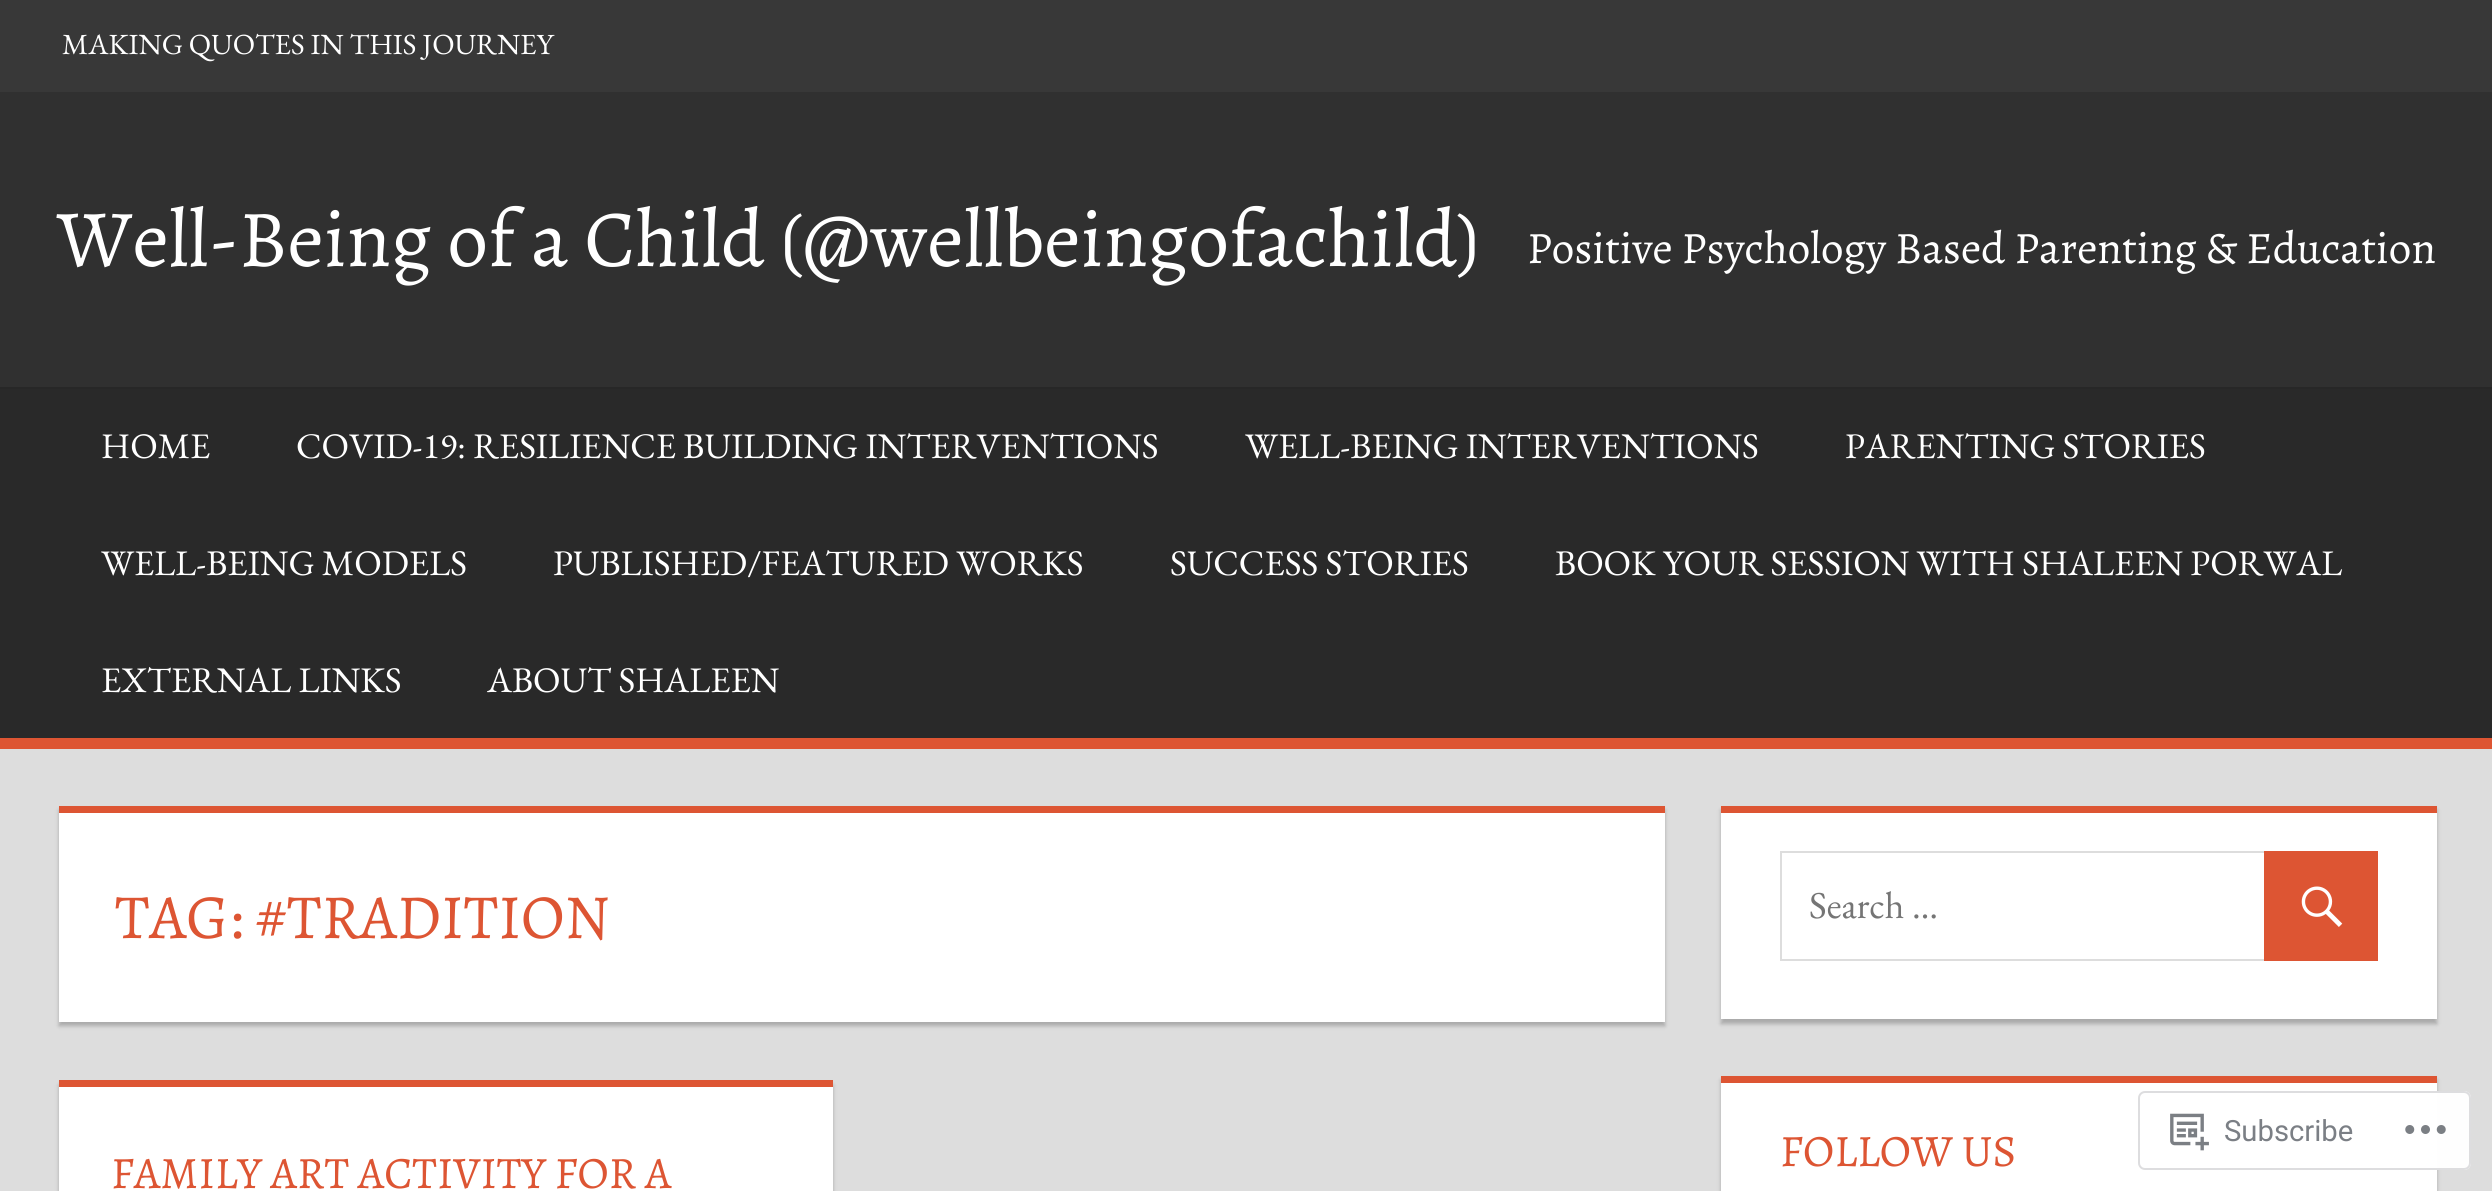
#include <cairo.h>
#include <math.h>
#include <stddef.h>


static void round_rect(cairo_t *cr, double x, double y, double w, double h, double r) {
    cairo_new_sub_path(cr);
    cairo_arc(cr, x + w - r, y + h - r, r, 0, M_PI / 2);
    cairo_arc(cr, x + r, y + h - r, r, M_PI / 2, M_PI);
    cairo_arc(cr, x + r, y + r, r, M_PI, 1.5 * M_PI);
    cairo_arc(cr, x + w - r, y + r, r, 1.5 * M_PI, 2 * M_PI);
    cairo_close_path(cr);
}

static void shadow(cairo_t *cr, double x, double y, double w, double h, double r, double blur, double alpha) {
    cairo_push_group_with_content(cr, CAIRO_CONTENT_ALPHA);
    cairo_set_operator(cr, CAIRO_OPERATOR_SOURCE);
    for (int i = 15; i >= -15 && fmin(w, h) + blur * i / 3 > 0; i -= 2) {
        double e = blur * i / 6;
        cairo_set_source_rgba(cr, 0, 0, 0, alpha * erfc((i - 1) / 8.5) / 2);
        round_rect(cr, x - e, y - e, w + 2 * e, h + 2 * e, fmax(0, fmin(r + e + blur * .6, fmin(w, h) / 2 + e)));
        cairo_fill(cr);
    }
    cairo_pattern_t *soft = cairo_pop_group(cr);
    cairo_mask(cr, soft);
    cairo_pattern_destroy(soft);
}

static void picture(cairo_t *cr, const char *path, double x, double y, double w, double h) {
    cairo_surface_t *image = cairo_image_surface_create_from_png(path);
    cairo_save(cr);
    cairo_set_source_surface(cr, image, x, y);
    cairo_rectangle(cr, x, y, w, h);
    cairo_fill(cr);
    cairo_restore(cr);
    cairo_surface_destroy(image);
}

int main(void) {
    cairo_surface_t *surface = cairo_image_surface_create(CAIRO_FORMAT_RGB24, 2492, 1191);
    cairo_t *cr = cairo_create(surface);
    cairo_font_options_t *options = cairo_font_options_create();
    cairo_font_options_set_hint_metrics(options, CAIRO_HINT_METRICS_OFF);
    cairo_font_options_set_hint_style(options, CAIRO_HINT_STYLE_NONE);
    cairo_set_font_options(cr, options);
    cairo_set_miter_limit(cr, 4);
    cairo_set_source_rgb(cr, 0.867, 0.867, 0.867);
    cairo_paint(cr);
    cairo_set_source_rgb(cr, 0.22, 0.22, 0.22);
    cairo_rectangle(cr, 0, 0, 2492, 92);
    cairo_fill(cr);
    cairo_select_font_face(cr, "EB Garamond", CAIRO_FONT_SLANT_NORMAL, CAIRO_FONT_WEIGHT_NORMAL);
    cairo_set_font_size(cr, 29.25);
    cairo_set_source_rgb(cr, 1, 1, 1);
    cairo_move_to(cr, 62, 54);
    cairo_show_text(cr, "MAKING QUOTES IN THIS JOURNEY");
    cairo_set_source_rgb(cr, 0.188, 0.188, 0.188);
    cairo_rectangle(cr, 0, 92, 2492, 295);
    cairo_fill(cr);
    cairo_select_font_face(cr, "Alegreya", CAIRO_FONT_SLANT_NORMAL, CAIRO_FONT_WEIGHT_NORMAL);
    cairo_set_font_size(cr, 81);
    cairo_set_source_rgb(cr, 1, 1, 1);
    cairo_move_to(cr, 57, 266);
    cairo_show_text(cr, "Well-Being of a Child (@wellbeingofachild)");
    cairo_set_font_size(cr, 45);
    cairo_move_to(cr, 1527, 263);
    cairo_show_text(cr, "Positive Psychology Based Parenting & Education");
    cairo_set_source_rgb(cr, 0.161, 0.161, 0.161);
    cairo_rectangle(cr, 0, 389, 2492, 349);
    cairo_fill(cr);
    cairo_set_source_rgb(cr, 0.153, 0.153, 0.153);
    cairo_rectangle(cr, 0, 387, 2492, 2);
    cairo_fill(cr);
    cairo_set_source_rgb(cr, 0.867, 0.333, 0.2);
    cairo_rectangle(cr, 0, 738, 2492, 11);
    cairo_fill(cr);
    cairo_select_font_face(cr, "EB Garamond", CAIRO_FONT_SLANT_NORMAL, CAIRO_FONT_WEIGHT_NORMAL);
    cairo_set_font_size(cr, 36);
    cairo_set_source_rgb(cr, 1, 1, 1);
    cairo_move_to(cr, 101, 458);
    cairo_show_text(cr, "HOME");
    cairo_move_to(cr, 296, 458);
    cairo_show_text(cr, "COVID-19: RESILIENCE BUILDING INTERVENTIONS");
    cairo_move_to(cr, 1245, 458);
    cairo_show_text(cr, "WELL-BEING INTERVENTIONS");
    cairo_move_to(cr, 1845, 458);
    cairo_show_text(cr, "PARENTING STORIES");
    cairo_move_to(cr, 101, 575);
    cairo_show_text(cr, "WELL-BEING MODELS");
    cairo_move_to(cr, 553, 575);
    cairo_show_text(cr, "PUBLISHED/FEATURED WORKS");
    cairo_move_to(cr, 1170, 575);
    cairo_show_text(cr, "SUCCESS STORIES");
    cairo_move_to(cr, 1555, 575);
    cairo_show_text(cr, "BOOK YOUR SESSION WITH SHALEEN PORWAL");
    cairo_move_to(cr, 101, 692);
    cairo_show_text(cr, "EXTERNAL LINKS");
    cairo_move_to(cr, 487, 692);
    cairo_show_text(cr, "ABOUT SHALEEN");
    cairo_set_source_rgb(cr, 0.667, 0.667, 0.667);
    shadow(cr, 59, 810, 1606, 216, 0, 2, 1);
    cairo_set_source_rgb(cr, 1, 1, 1);
    cairo_rectangle(cr, 59, 813, 1606, 209);
    cairo_fill(cr);
    cairo_set_source_rgb(cr, 0.867, 0.333, 0.2);
    cairo_rectangle(cr, 59, 806, 1606, 7);
    cairo_fill(cr);
    cairo_select_font_face(cr, "Alegreya", CAIRO_FONT_SLANT_NORMAL, CAIRO_FONT_WEIGHT_NORMAL);
    cairo_set_font_size(cr, 63);
    cairo_move_to(cr, 115, 938);
    cairo_show_text(cr, "TAG: #TRADITION");
    cairo_set_source_rgb(cr, 0.667, 0.667, 0.667);
    shadow(cr, 59, 1085, 774, 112, 0, 2, 1);
    cairo_set_source_rgb(cr, 1, 1, 1);
    cairo_rectangle(cr, 59, 1087, 774, 104);
    cairo_fill(cr);
    cairo_set_source_rgb(cr, 0.867, 0.333, 0.2);
    cairo_rectangle(cr, 59, 1080, 774, 7);
    cairo_fill(cr);
    cairo_set_font_size(cr, 45);
    cairo_move_to(cr, 111, 1188);
    cairo_show_text(cr, "FAMILY ART ACTIVITY FOR A");
    cairo_set_source_rgb(cr, 0.667, 0.667, 0.667);
    shadow(cr, 1721, 810, 716, 214, 0, 2, 1);
    cairo_set_source_rgb(cr, 1, 1, 1);
    cairo_rectangle(cr, 1721, 813, 716, 206);
    cairo_fill(cr);
    cairo_set_source_rgb(cr, 0.867, 0.333, 0.2);
    cairo_rectangle(cr, 1721, 806, 716, 7);
    cairo_fill(cr);
    cairo_rectangle(cr, 1781, 852, 596, 108);
    cairo_set_source_rgb(cr, 0.867, 0.867, 0.867);
    cairo_stroke(cr);
    cairo_select_font_face(cr, "EB Garamond", CAIRO_FONT_SLANT_NORMAL, CAIRO_FONT_WEIGHT_NORMAL);
    cairo_set_font_size(cr, 38);
    cairo_set_source_rgb(cr, 0.459, 0.459, 0.459);
    cairo_move_to(cr, 1809, 918);
    cairo_show_text(cr, "Search …");
    cairo_set_source_rgb(cr, 0.867, 0.333, 0.2);
    cairo_rectangle(cr, 2264, 851, 114, 110);
    cairo_fill(cr);
    picture(cr, "img1.png", 2301, 886, 42, 41);
    cairo_set_source_rgb(cr, 0.667, 0.667, 0.667);
    shadow(cr, 1721, 1080, 716, 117, 0, 2, 1);
    cairo_set_source_rgb(cr, 1, 1, 1);
    cairo_rectangle(cr, 1721, 1083, 716, 108);
    cairo_fill(cr);
    cairo_set_source_rgb(cr, 0.867, 0.333, 0.2);
    cairo_rectangle(cr, 1721, 1076, 716, 7);
    cairo_fill(cr);
    cairo_select_font_face(cr, "Alegreya", CAIRO_FONT_SLANT_NORMAL, CAIRO_FONT_WEIGHT_NORMAL);
    cairo_set_font_size(cr, 45);
    cairo_move_to(cr, 1780, 1166);
    cairo_show_text(cr, "FOLLOW US");
    cairo_set_source_rgba(cr, 1, 1, 1, 0.98);
    round_rect(cr, 2138, 1091, 333, 79, 7);
    cairo_fill(cr);
    round_rect(cr, 2139, 1092, 331, 77, 6);
    cairo_set_source_rgba(cr, 0.863, 0.863, 0.871, 0.98);
    cairo_stroke(cr);
    picture(cr, "img2.png", 2170, 1113, 39, 38);
    cairo_select_font_face(cr, "Roboto", CAIRO_FONT_SLANT_NORMAL, CAIRO_FONT_WEIGHT_NORMAL);
    cairo_set_font_size(cr, 29.25);
    cairo_set_source_rgb(cr, 0.482, 0.498, 0.522);
    cairo_move_to(cr, 2224, 1141);
    cairo_show_text(cr, "Subscribe");
    picture(cr, "img3.png", 2405, 1125, 41, 9);
    cairo_surface_write_to_png(surface, "page.png");
    cairo_font_options_destroy(options);
    cairo_destroy(cr);
    cairo_surface_destroy(surface);
    return 0;
}
